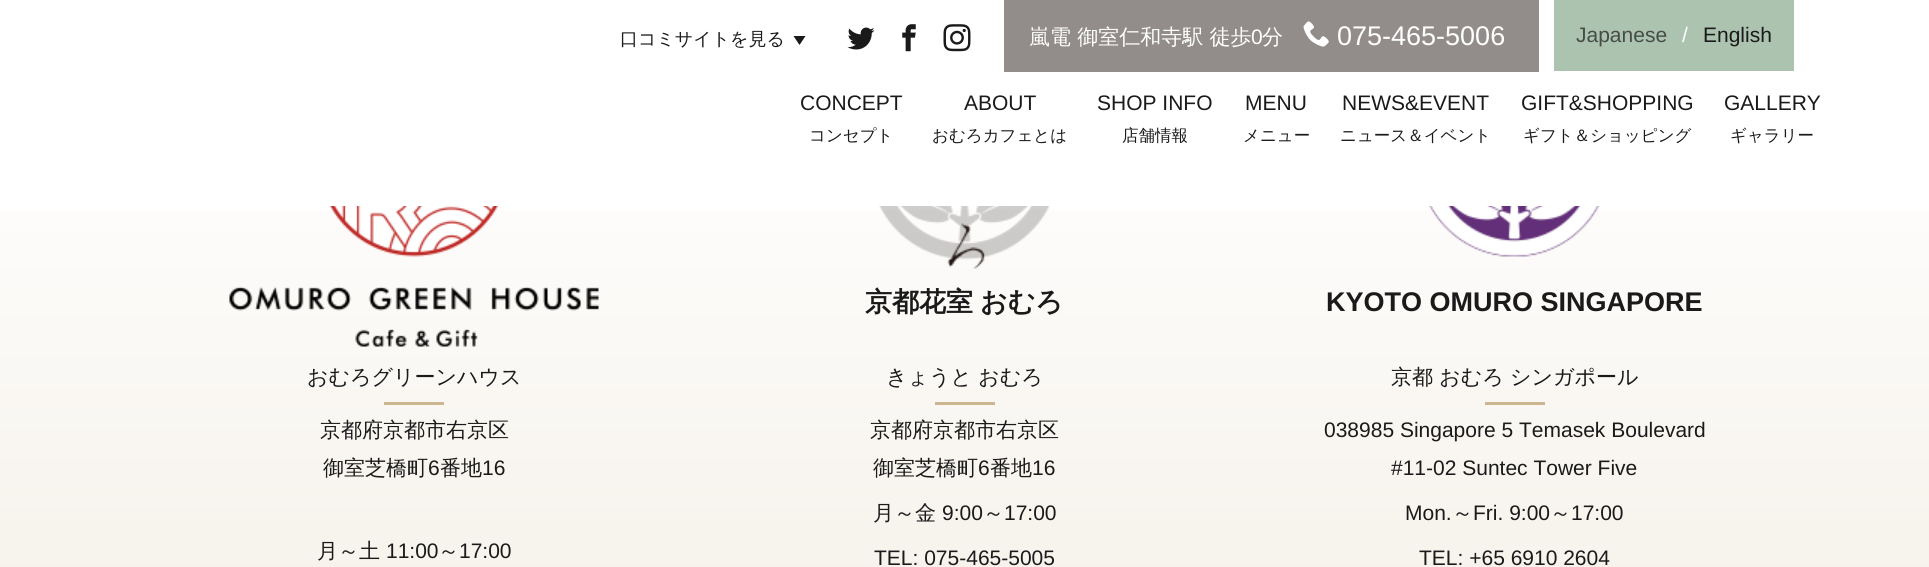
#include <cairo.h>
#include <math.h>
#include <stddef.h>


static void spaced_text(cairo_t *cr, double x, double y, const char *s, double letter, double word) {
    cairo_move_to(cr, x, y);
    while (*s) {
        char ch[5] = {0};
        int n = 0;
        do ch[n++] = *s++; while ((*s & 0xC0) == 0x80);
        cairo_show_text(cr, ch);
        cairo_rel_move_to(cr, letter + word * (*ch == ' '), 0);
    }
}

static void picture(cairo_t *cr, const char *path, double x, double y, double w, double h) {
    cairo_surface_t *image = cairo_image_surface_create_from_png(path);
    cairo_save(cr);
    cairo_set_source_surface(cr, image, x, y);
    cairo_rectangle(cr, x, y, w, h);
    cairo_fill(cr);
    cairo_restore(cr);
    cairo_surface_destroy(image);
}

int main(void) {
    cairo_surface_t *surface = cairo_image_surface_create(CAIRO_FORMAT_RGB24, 1929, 567);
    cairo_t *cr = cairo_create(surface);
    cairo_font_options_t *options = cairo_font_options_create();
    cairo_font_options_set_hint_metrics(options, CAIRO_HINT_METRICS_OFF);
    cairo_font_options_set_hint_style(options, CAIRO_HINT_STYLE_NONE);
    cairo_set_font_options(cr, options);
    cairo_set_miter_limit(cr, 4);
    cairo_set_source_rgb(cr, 1, 1, 1);
    cairo_paint(cr);
    cairo_select_font_face(cr, "WenQuanYi Zen Hei Medium", CAIRO_FONT_SLANT_NORMAL, CAIRO_FONT_WEIGHT_NORMAL);
    cairo_set_font_size(cr, 18);
    cairo_set_source_rgb(cr, 0.102, 0.102, 0.102);
    cairo_move_to(cr, 620, 45);
    cairo_show_text(cr, "口コミサイトを見る");
    cairo_new_path(cr);
    cairo_move_to(cr, 793.5, 36);
    cairo_line_to(cr, 805.5, 36);
    cairo_line_to(cr, 799.5, 45);
    cairo_close_path(cr);
    cairo_fill(cr);
    picture(cr, "img1.png", 847, 27, 28, 23);
    picture(cr, "img2.png", 902, 24, 14, 28);
    picture(cr, "img3.png", 943, 24, 28, 28);
    cairo_set_source_rgb(cr, 0.573, 0.553, 0.541);
    cairo_rectangle(cr, 1004, 0, 535, 72);
    cairo_fill(cr);
    cairo_set_font_size(cr, 21);
    cairo_set_source_rgb(cr, 1, 1, 1);
    cairo_move_to(cr, 1029, 44);
    cairo_show_text(cr, "嵐電 御室仁和寺駅 徒歩");
    cairo_select_font_face(cr, "Liberation Sans", CAIRO_FONT_SLANT_NORMAL, CAIRO_FONT_WEIGHT_NORMAL);
    cairo_move_to(cr, 1251, 44);
    cairo_show_text(cr, "0");
    cairo_select_font_face(cr, "WenQuanYi Zen Hei Medium", CAIRO_FONT_SLANT_NORMAL, CAIRO_FONT_WEIGHT_NORMAL);
    cairo_move_to(cr, 1262, 44);
    cairo_show_text(cr, "分");
    picture(cr, "img4.png", 1303, 21, 26, 26);
    cairo_select_font_face(cr, "Liberation Sans", CAIRO_FONT_SLANT_NORMAL, CAIRO_FONT_WEIGHT_NORMAL);
    cairo_set_font_size(cr, 27);
    cairo_move_to(cr, 1337, 45);
    cairo_show_text(cr, "075-465-5006");
    cairo_set_source_rgb(cr, 0.675, 0.765, 0.686);
    cairo_rectangle(cr, 1554, 0, 240, 71);
    cairo_fill(cr);
    cairo_set_font_size(cr, 21);
    cairo_set_source_rgb(cr, 0.275, 0.302, 0.278);
    cairo_move_to(cr, 1576, 42);
    cairo_show_text(cr, "Japanese");
    cairo_set_source_rgb(cr, 1, 1, 1);
    cairo_move_to(cr, 1682, 42);
    cairo_show_text(cr, "/");
    cairo_set_source_rgb(cr, 0.102, 0.102, 0.102);
    cairo_move_to(cr, 1703, 42);
    cairo_show_text(cr, "English");
    cairo_move_to(cr, 800, 110);
    cairo_show_text(cr, "CONCEPT");
    cairo_select_font_face(cr, "WenQuanYi Zen Hei Medium", CAIRO_FONT_SLANT_NORMAL, CAIRO_FONT_WEIGHT_NORMAL);
    cairo_set_font_size(cr, 16.5);
    cairo_move_to(cr, 809, 141);
    cairo_show_text(cr, "コンセプト");
    cairo_select_font_face(cr, "Liberation Sans", CAIRO_FONT_SLANT_NORMAL, CAIRO_FONT_WEIGHT_NORMAL);
    cairo_set_font_size(cr, 21);
    cairo_move_to(cr, 964, 110);
    cairo_show_text(cr, "ABOUT");
    cairo_select_font_face(cr, "WenQuanYi Zen Hei Medium", CAIRO_FONT_SLANT_NORMAL, CAIRO_FONT_WEIGHT_NORMAL);
    cairo_set_font_size(cr, 16.5);
    cairo_move_to(cr, 932, 141);
    cairo_show_text(cr, "おむろカフェとは");
    cairo_select_font_face(cr, "Liberation Sans", CAIRO_FONT_SLANT_NORMAL, CAIRO_FONT_WEIGHT_NORMAL);
    cairo_set_font_size(cr, 21);
    cairo_move_to(cr, 1097, 110);
    cairo_show_text(cr, "SHOP INFO");
    cairo_select_font_face(cr, "WenQuanYi Zen Hei Medium", CAIRO_FONT_SLANT_NORMAL, CAIRO_FONT_WEIGHT_NORMAL);
    cairo_set_font_size(cr, 16.5);
    cairo_move_to(cr, 1122, 141);
    cairo_show_text(cr, "店舗情報");
    cairo_select_font_face(cr, "Liberation Sans", CAIRO_FONT_SLANT_NORMAL, CAIRO_FONT_WEIGHT_NORMAL);
    cairo_set_font_size(cr, 21);
    cairo_move_to(cr, 1245, 110);
    cairo_show_text(cr, "MENU");
    cairo_select_font_face(cr, "WenQuanYi Zen Hei Medium", CAIRO_FONT_SLANT_NORMAL, CAIRO_FONT_WEIGHT_NORMAL);
    cairo_set_font_size(cr, 16.5);
    cairo_move_to(cr, 1243, 141);
    cairo_show_text(cr, "メニュー");
    cairo_select_font_face(cr, "Liberation Sans", CAIRO_FONT_SLANT_NORMAL, CAIRO_FONT_WEIGHT_NORMAL);
    cairo_set_font_size(cr, 21);
    cairo_move_to(cr, 1342, 110);
    cairo_show_text(cr, "NEWS&EVENT");
    cairo_select_font_face(cr, "WenQuanYi Zen Hei Medium", CAIRO_FONT_SLANT_NORMAL, CAIRO_FONT_WEIGHT_NORMAL);
    cairo_set_font_size(cr, 16.5);
    cairo_move_to(cr, 1340, 141);
    cairo_show_text(cr, "ニュース＆イベント");
    cairo_select_font_face(cr, "Liberation Sans", CAIRO_FONT_SLANT_NORMAL, CAIRO_FONT_WEIGHT_NORMAL);
    cairo_set_font_size(cr, 21);
    cairo_move_to(cr, 1521, 110);
    cairo_show_text(cr, "GIFT&SHOPPING");
    cairo_select_font_face(cr, "WenQuanYi Zen Hei Medium", CAIRO_FONT_SLANT_NORMAL, CAIRO_FONT_WEIGHT_NORMAL);
    cairo_set_font_size(cr, 16.5);
    cairo_move_to(cr, 1523, 141);
    cairo_show_text(cr, "ギフト＆ショッピング");
    cairo_select_font_face(cr, "Liberation Sans", CAIRO_FONT_SLANT_NORMAL, CAIRO_FONT_WEIGHT_NORMAL);
    cairo_set_font_size(cr, 21);
    cairo_move_to(cr, 1724, 110);
    cairo_show_text(cr, "GALLERY");
    cairo_select_font_face(cr, "WenQuanYi Zen Hei Medium", CAIRO_FONT_SLANT_NORMAL, CAIRO_FONT_WEIGHT_NORMAL);
    cairo_set_font_size(cr, 16.5);
    cairo_move_to(cr, 1730, 141);
    cairo_show_text(cr, "ギャラリー");
    picture(cr, "img5.png", 0, 210, 1929, 357);
    picture(cr, "img6.png", 229, 206, 370, 141);
    cairo_set_font_size(cr, 21);
    cairo_move_to(cr, 307, 384);
    cairo_show_text(cr, "おむろグリーンハウス");
    cairo_set_source_rgb(cr, 0.804, 0.718, 0.569);
    cairo_rectangle(cr, 384, 402, 60, 3);
    cairo_fill(cr);
    cairo_set_source_rgb(cr, 0.102, 0.102, 0.102);
    cairo_move_to(cr, 320, 437);
    cairo_show_text(cr, "京都府京都市右京区");
    cairo_move_to(cr, 323, 475);
    cairo_show_text(cr, "御室芝橋町");
    cairo_select_font_face(cr, "Liberation Sans", CAIRO_FONT_SLANT_NORMAL, CAIRO_FONT_WEIGHT_NORMAL);
    cairo_move_to(cr, 428, 475);
    cairo_show_text(cr, "6");
    cairo_select_font_face(cr, "WenQuanYi Zen Hei Medium", CAIRO_FONT_SLANT_NORMAL, CAIRO_FONT_WEIGHT_NORMAL);
    cairo_move_to(cr, 440, 475);
    cairo_show_text(cr, "番地");
    cairo_select_font_face(cr, "Liberation Sans", CAIRO_FONT_SLANT_NORMAL, CAIRO_FONT_WEIGHT_NORMAL);
    cairo_move_to(cr, 482, 475);
    cairo_show_text(cr, "16");
    cairo_select_font_face(cr, "WenQuanYi Zen Hei Medium", CAIRO_FONT_SLANT_NORMAL, CAIRO_FONT_WEIGHT_NORMAL);
    cairo_move_to(cr, 317, 558);
    cairo_show_text(cr, "月～土");
    cairo_select_font_face(cr, "Liberation Sans", CAIRO_FONT_SLANT_NORMAL, CAIRO_FONT_WEIGHT_NORMAL);
    cairo_move_to(cr, 386, 558);
    cairo_show_text(cr, "11:00");
    cairo_select_font_face(cr, "WenQuanYi Zen Hei Medium", CAIRO_FONT_SLANT_NORMAL, CAIRO_FONT_WEIGHT_NORMAL);
    cairo_move_to(cr, 438, 558);
    cairo_show_text(cr, "～");
    cairo_select_font_face(cr, "Liberation Sans", CAIRO_FONT_SLANT_NORMAL, CAIRO_FONT_WEIGHT_NORMAL);
    cairo_move_to(cr, 459, 558);
    cairo_show_text(cr, "17:00");
    picture(cr, "img7.png", 879, 206, 171, 63);
    cairo_select_font_face(cr, "WenQuanYi Zen Hei", CAIRO_FONT_SLANT_NORMAL, CAIRO_FONT_WEIGHT_BOLD);
    cairo_set_font_size(cr, 27);
    spaced_text(cr, 865, 311, "京都花室 おむろ", 0, -1);
    cairo_select_font_face(cr, "WenQuanYi Zen Hei Medium", CAIRO_FONT_SLANT_NORMAL, CAIRO_FONT_WEIGHT_NORMAL);
    cairo_set_font_size(cr, 21);
    cairo_move_to(cr, 886, 384);
    cairo_show_text(cr, "きょうと おむろ");
    cairo_set_source_rgb(cr, 0.804, 0.718, 0.569);
    cairo_rectangle(cr, 935, 402, 60, 3);
    cairo_fill(cr);
    cairo_set_source_rgb(cr, 0.102, 0.102, 0.102);
    cairo_move_to(cr, 870, 437);
    cairo_show_text(cr, "京都府京都市右京区");
    cairo_move_to(cr, 873, 475);
    cairo_show_text(cr, "御室芝橋町");
    cairo_select_font_face(cr, "Liberation Sans", CAIRO_FONT_SLANT_NORMAL, CAIRO_FONT_WEIGHT_NORMAL);
    cairo_move_to(cr, 978, 475);
    cairo_show_text(cr, "6");
    cairo_select_font_face(cr, "WenQuanYi Zen Hei Medium", CAIRO_FONT_SLANT_NORMAL, CAIRO_FONT_WEIGHT_NORMAL);
    cairo_move_to(cr, 990, 475);
    cairo_show_text(cr, "番地");
    cairo_select_font_face(cr, "Liberation Sans", CAIRO_FONT_SLANT_NORMAL, CAIRO_FONT_WEIGHT_NORMAL);
    cairo_move_to(cr, 1032, 475);
    cairo_show_text(cr, "16");
    cairo_select_font_face(cr, "WenQuanYi Zen Hei Medium", CAIRO_FONT_SLANT_NORMAL, CAIRO_FONT_WEIGHT_NORMAL);
    cairo_move_to(cr, 873, 520);
    cairo_show_text(cr, "月～金");
    cairo_select_font_face(cr, "Liberation Sans", CAIRO_FONT_SLANT_NORMAL, CAIRO_FONT_WEIGHT_NORMAL);
    cairo_move_to(cr, 942, 520);
    cairo_show_text(cr, "9:00");
    cairo_select_font_face(cr, "WenQuanYi Zen Hei Medium", CAIRO_FONT_SLANT_NORMAL, CAIRO_FONT_WEIGHT_NORMAL);
    cairo_move_to(cr, 983, 520);
    cairo_show_text(cr, "～");
    cairo_select_font_face(cr, "Liberation Sans", CAIRO_FONT_SLANT_NORMAL, CAIRO_FONT_WEIGHT_NORMAL);
    cairo_move_to(cr, 1004, 520);
    cairo_show_text(cr, "17:00");
    cairo_move_to(cr, 874, 565);
    cairo_show_text(cr, "TEL: 075-465-5005");
    picture(cr, "img8.png", 1429, 206, 171, 51);
    cairo_select_font_face(cr, "Liberation Sans", CAIRO_FONT_SLANT_NORMAL, CAIRO_FONT_WEIGHT_BOLD);
    cairo_set_font_size(cr, 27);
    cairo_move_to(cr, 1326, 311);
    cairo_show_text(cr, "KYOTO OMURO SINGAPORE");
    cairo_select_font_face(cr, "WenQuanYi Zen Hei Medium", CAIRO_FONT_SLANT_NORMAL, CAIRO_FONT_WEIGHT_NORMAL);
    cairo_set_font_size(cr, 21);
    cairo_move_to(cr, 1391, 384);
    cairo_show_text(cr, "京都 おむろ シンガポール");
    cairo_set_source_rgb(cr, 0.804, 0.718, 0.569);
    cairo_rectangle(cr, 1485, 402, 60, 3);
    cairo_fill(cr);
    cairo_select_font_face(cr, "Liberation Sans", CAIRO_FONT_SLANT_NORMAL, CAIRO_FONT_WEIGHT_NORMAL);
    cairo_set_source_rgb(cr, 0.102, 0.102, 0.102);
    cairo_move_to(cr, 1324, 437);
    cairo_show_text(cr, "038985 Singapore 5 Temasek Boulevard");
    cairo_move_to(cr, 1391, 475);
    cairo_show_text(cr, "#11-02 Suntec Tower Five");
    cairo_move_to(cr, 1405, 520);
    cairo_show_text(cr, "Mon.");
    cairo_select_font_face(cr, "WenQuanYi Zen Hei Medium", CAIRO_FONT_SLANT_NORMAL, CAIRO_FONT_WEIGHT_NORMAL);
    cairo_move_to(cr, 1452, 520);
    cairo_show_text(cr, "～");
    cairo_select_font_face(cr, "Liberation Sans", CAIRO_FONT_SLANT_NORMAL, CAIRO_FONT_WEIGHT_NORMAL);
    cairo_move_to(cr, 1473, 520);
    cairo_show_text(cr, "Fri. 9:00");
    cairo_select_font_face(cr, "WenQuanYi Zen Hei Medium", CAIRO_FONT_SLANT_NORMAL, CAIRO_FONT_WEIGHT_NORMAL);
    cairo_move_to(cr, 1550, 520);
    cairo_show_text(cr, "～");
    cairo_select_font_face(cr, "Liberation Sans", CAIRO_FONT_SLANT_NORMAL, CAIRO_FONT_WEIGHT_NORMAL);
    cairo_move_to(cr, 1571, 520);
    cairo_show_text(cr, "17:00");
    cairo_move_to(cr, 1419, 565);
    cairo_show_text(cr, "TEL: +65 6910 2604");
    cairo_surface_write_to_png(surface, "page.png");
    cairo_font_options_destroy(options);
    cairo_destroy(cr);
    cairo_surface_destroy(surface);
    return 0;
}
